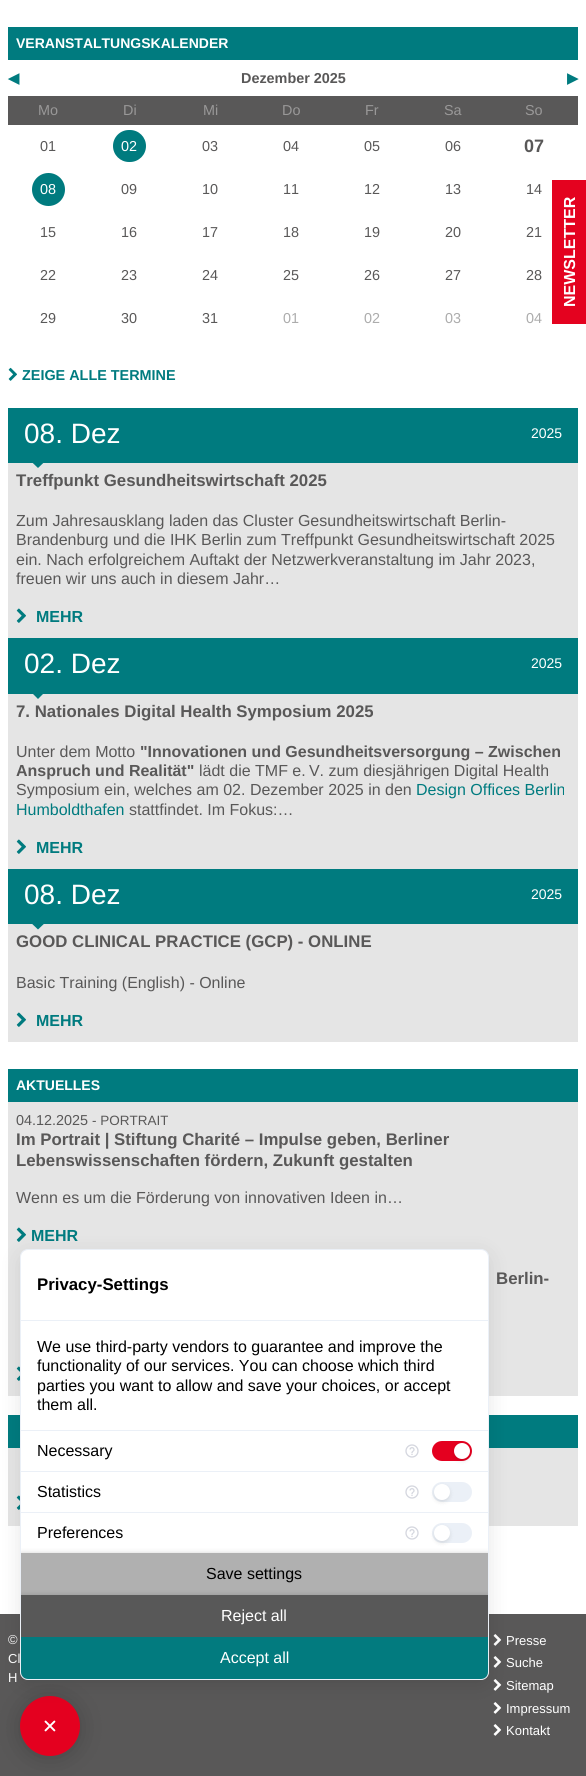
#include <cairo.h>
#include <math.h>
#include <stddef.h>


static void round_rect(cairo_t *cr, double x, double y, double w, double h, double r) {
    cairo_new_sub_path(cr);
    cairo_arc(cr, x + w - r, y + h - r, r, 0, M_PI / 2);
    cairo_arc(cr, x + r, y + h - r, r, M_PI / 2, M_PI);
    cairo_arc(cr, x + r, y + r, r, M_PI, 1.5 * M_PI);
    cairo_arc(cr, x + w - r, y + r, r, 1.5 * M_PI, 2 * M_PI);
    cairo_close_path(cr);
}

static void shadow(cairo_t *cr, double x, double y, double w, double h, double r, double blur, double alpha) {
    cairo_push_group_with_content(cr, CAIRO_CONTENT_ALPHA);
    cairo_set_operator(cr, CAIRO_OPERATOR_SOURCE);
    for (int i = 15; i >= -15 && fmin(w, h) + blur * i / 3 > 0; i -= 2) {
        double e = blur * i / 6;
        cairo_set_source_rgba(cr, 0, 0, 0, alpha * erfc((i - 1) / 8.5) / 2);
        round_rect(cr, x - e, y - e, w + 2 * e, h + 2 * e, fmax(0, fmin(r + e + blur * .6, fmin(w, h) / 2 + e)));
        cairo_fill(cr);
    }
    cairo_pattern_t *soft = cairo_pop_group(cr);
    cairo_mask(cr, soft);
    cairo_pattern_destroy(soft);
}

static void picture(cairo_t *cr, const char *path, double x, double y, double w, double h) {
    cairo_surface_t *image = cairo_image_surface_create_from_png(path);
    cairo_save(cr);
    cairo_set_source_surface(cr, image, x, y);
    cairo_rectangle(cr, x, y, w, h);
    cairo_fill(cr);
    cairo_restore(cr);
    cairo_surface_destroy(image);
}

int main(void) {
    cairo_surface_t *surface = cairo_image_surface_create(CAIRO_FORMAT_RGB24, 586, 1776);
    cairo_t *cr = cairo_create(surface);
    cairo_font_options_t *options = cairo_font_options_create();
    cairo_font_options_set_hint_metrics(options, CAIRO_HINT_METRICS_OFF);
    cairo_font_options_set_hint_style(options, CAIRO_HINT_STYLE_NONE);
    cairo_set_font_options(cr, options);
    cairo_set_miter_limit(cr, 4);
    cairo_set_source_rgb(cr, 1, 1, 1);
    cairo_paint(cr);
    cairo_set_source_rgb(cr, 0, 0.482, 0.498);
    cairo_rectangle(cr, 8, 27, 570, 33);
    cairo_fill(cr);
    cairo_select_font_face(cr, "Liberation Sans", CAIRO_FONT_SLANT_NORMAL, CAIRO_FONT_WEIGHT_BOLD);
    cairo_set_font_size(cr, 14);
    cairo_set_source_rgb(cr, 1, 1, 1);
    cairo_move_to(cr, 16, 48);
    cairo_show_text(cr, "VERANSTALTUNGSKALENDER");
    cairo_select_font_face(cr, "DejaVu Sans", CAIRO_FONT_SLANT_NORMAL, CAIRO_FONT_WEIGHT_BOLD);
    cairo_set_font_size(cr, 14.4);
    cairo_set_source_rgb(cr, 0, 0.482, 0.498);
    cairo_move_to(cr, 8, 83);
    cairo_show_text(cr, "◀");
    cairo_select_font_face(cr, "Liberation Sans", CAIRO_FONT_SLANT_NORMAL, CAIRO_FONT_WEIGHT_BOLD);
    cairo_set_source_rgb(cr, 0.349, 0.345, 0.345);
    cairo_move_to(cr, 241, 83);
    cairo_show_text(cr, "Dezember 2025");
    cairo_select_font_face(cr, "DejaVu Sans", CAIRO_FONT_SLANT_NORMAL, CAIRO_FONT_WEIGHT_BOLD);
    cairo_set_source_rgb(cr, 0, 0.482, 0.498);
    cairo_move_to(cr, 567, 83);
    cairo_show_text(cr, "▶");
    cairo_set_source_rgb(cr, 0.349, 0.345, 0.345);
    cairo_rectangle(cr, 8, 96, 570, 29);
    cairo_fill(cr);
    cairo_select_font_face(cr, "Liberation Sans", CAIRO_FONT_SLANT_NORMAL, CAIRO_FONT_WEIGHT_NORMAL);
    cairo_set_source_rgb(cr, 0.6, 0.596, 0.596);
    cairo_move_to(cr, 38, 115);
    cairo_show_text(cr, "Mo");
    cairo_move_to(cr, 123, 115);
    cairo_show_text(cr, "Di");
    cairo_move_to(cr, 203, 115);
    cairo_show_text(cr, "Mi");
    cairo_move_to(cr, 282, 115);
    cairo_show_text(cr, "Do");
    cairo_move_to(cr, 365, 115);
    cairo_show_text(cr, "Fr");
    cairo_move_to(cr, 444, 115);
    cairo_show_text(cr, "Sa");
    cairo_move_to(cr, 525, 115);
    cairo_show_text(cr, "So");
    cairo_set_source_rgb(cr, 0.349, 0.345, 0.345);
    cairo_move_to(cr, 40, 151);
    cairo_show_text(cr, "01");
    cairo_set_source_rgb(cr, 0, 0.482, 0.498);
    round_rect(cr, 113, 130, 33, 32, 16);
    cairo_fill(cr);
    cairo_set_source_rgb(cr, 1, 1, 1);
    cairo_move_to(cr, 121, 151);
    cairo_show_text(cr, "02");
    cairo_set_source_rgb(cr, 0.349, 0.345, 0.345);
    cairo_move_to(cr, 202, 151);
    cairo_show_text(cr, "03");
    cairo_move_to(cr, 283, 151);
    cairo_show_text(cr, "04");
    cairo_move_to(cr, 364, 151);
    cairo_show_text(cr, "05");
    cairo_move_to(cr, 445, 151);
    cairo_show_text(cr, "06");
    cairo_select_font_face(cr, "Liberation Sans", CAIRO_FONT_SLANT_NORMAL, CAIRO_FONT_WEIGHT_BOLD);
    cairo_set_font_size(cr, 18);
    cairo_move_to(cr, 524, 152);
    cairo_show_text(cr, "07");
    cairo_set_source_rgb(cr, 0, 0.482, 0.498);
    cairo_new_path(cr);
    cairo_arc(cr, 48.5, 189.5, 16.5, 0, 2 * M_PI);
    cairo_fill(cr);
    cairo_select_font_face(cr, "Liberation Sans", CAIRO_FONT_SLANT_NORMAL, CAIRO_FONT_WEIGHT_NORMAL);
    cairo_set_font_size(cr, 14.4);
    cairo_set_source_rgb(cr, 1, 1, 1);
    cairo_move_to(cr, 40, 194);
    cairo_show_text(cr, "08");
    cairo_set_source_rgb(cr, 0.349, 0.345, 0.345);
    cairo_move_to(cr, 121, 194);
    cairo_show_text(cr, "09");
    cairo_move_to(cr, 202, 194);
    cairo_show_text(cr, "10");
    cairo_move_to(cr, 283, 194);
    cairo_show_text(cr, "11");
    cairo_move_to(cr, 364, 194);
    cairo_show_text(cr, "12");
    cairo_move_to(cr, 445, 194);
    cairo_show_text(cr, "13");
    cairo_move_to(cr, 526, 194);
    cairo_show_text(cr, "14");
    cairo_move_to(cr, 40, 237);
    cairo_show_text(cr, "15");
    cairo_move_to(cr, 121, 237);
    cairo_show_text(cr, "16");
    cairo_move_to(cr, 202, 237);
    cairo_show_text(cr, "17");
    cairo_move_to(cr, 283, 237);
    cairo_show_text(cr, "18");
    cairo_move_to(cr, 364, 237);
    cairo_show_text(cr, "19");
    cairo_move_to(cr, 445, 237);
    cairo_show_text(cr, "20");
    cairo_move_to(cr, 526, 237);
    cairo_show_text(cr, "21");
    cairo_move_to(cr, 40, 280);
    cairo_show_text(cr, "22");
    cairo_move_to(cr, 121, 280);
    cairo_show_text(cr, "23");
    cairo_move_to(cr, 202, 280);
    cairo_show_text(cr, "24");
    cairo_move_to(cr, 283, 280);
    cairo_show_text(cr, "25");
    cairo_move_to(cr, 364, 280);
    cairo_show_text(cr, "26");
    cairo_move_to(cr, 445, 280);
    cairo_show_text(cr, "27");
    cairo_move_to(cr, 526, 280);
    cairo_show_text(cr, "28");
    cairo_move_to(cr, 40, 323);
    cairo_show_text(cr, "29");
    cairo_move_to(cr, 121, 323);
    cairo_show_text(cr, "30");
    cairo_move_to(cr, 202, 323);
    cairo_show_text(cr, "31");
    cairo_set_source_rgb(cr, 0.675, 0.675, 0.675);
    cairo_move_to(cr, 283, 323);
    cairo_show_text(cr, "01");
    cairo_move_to(cr, 364, 323);
    cairo_show_text(cr, "02");
    cairo_move_to(cr, 445, 323);
    cairo_show_text(cr, "03");
    cairo_move_to(cr, 526, 323);
    cairo_show_text(cr, "04");
    picture(cr, "img1.png", 8, 367, 9, 14);
    cairo_select_font_face(cr, "Liberation Sans", CAIRO_FONT_SLANT_NORMAL, CAIRO_FONT_WEIGHT_BOLD);
    cairo_set_source_rgb(cr, 0, 0.482, 0.498);
    cairo_move_to(cr, 22, 380);
    cairo_show_text(cr, "ZEIGE ALLE TERMINE");
    cairo_set_source_rgb(cr, 0.898, 0.898, 0.898);
    cairo_rectangle(cr, 8, 463, 570, 175);
    cairo_fill(cr);
    cairo_set_source_rgb(cr, 0, 0.482, 0.498);
    cairo_rectangle(cr, 8, 408, 570, 55);
    cairo_fill(cr);
    cairo_select_font_face(cr, "Liberation Sans", CAIRO_FONT_SLANT_NORMAL, CAIRO_FONT_WEIGHT_NORMAL);
    cairo_set_font_size(cr, 28);
    cairo_set_source_rgb(cr, 1, 1, 1);
    cairo_move_to(cr, 24, 443);
    cairo_show_text(cr, "08. Dez");
    cairo_set_source_rgb(cr, 0, 0.482, 0.498);
    cairo_new_path(cr);
    cairo_move_to(cr, 38, 448.5);
    cairo_line_to(cr, 48, 458.5);
    cairo_line_to(cr, 38, 468);
    cairo_line_to(cr, 28, 458.5);
    cairo_close_path(cr);
    cairo_fill(cr);
    cairo_set_font_size(cr, 14);
    cairo_set_source_rgb(cr, 1, 1, 1);
    cairo_move_to(cr, 531, 438);
    cairo_show_text(cr, "2025");
    cairo_select_font_face(cr, "Liberation Sans", CAIRO_FONT_SLANT_NORMAL, CAIRO_FONT_WEIGHT_BOLD);
    cairo_set_font_size(cr, 16.8);
    cairo_set_source_rgb(cr, 0.349, 0.345, 0.345);
    cairo_move_to(cr, 16, 486);
    cairo_show_text(cr, "Treffpunkt Gesundheitswirtschaft 2025");
    cairo_select_font_face(cr, "Liberation Sans", CAIRO_FONT_SLANT_NORMAL, CAIRO_FONT_WEIGHT_NORMAL);
    cairo_set_font_size(cr, 16);
    cairo_move_to(cr, 16, 526);
    cairo_show_text(cr, "Zum Jahresausklang laden das Cluster Gesundheitswirtschaft Berlin-");
    cairo_move_to(cr, 16, 545);
    cairo_show_text(cr, "Brandenburg und die IHK Berlin zum Treffpunkt Gesundheitswirtschaft 2025");
    cairo_move_to(cr, 16, 565);
    cairo_show_text(cr, "ein. Nach erfolgreichem Auftakt der Netzwerkveranstaltung im Jahr 2023,");
    cairo_move_to(cr, 16, 584);
    cairo_show_text(cr, "freuen wir uns auch in diesem Jahr…");
    picture(cr, "img2.png", 16, 608, 10, 15);
    cairo_select_font_face(cr, "Liberation Sans", CAIRO_FONT_SLANT_NORMAL, CAIRO_FONT_WEIGHT_BOLD);
    cairo_set_source_rgb(cr, 0, 0.482, 0.498);
    cairo_move_to(cr, 36, 622);
    cairo_show_text(cr, "MEHR");
    cairo_set_source_rgb(cr, 0.898, 0.898, 0.898);
    cairo_rectangle(cr, 8, 694, 570, 175);
    cairo_fill(cr);
    cairo_set_source_rgb(cr, 0, 0.482, 0.498);
    cairo_rectangle(cr, 8, 638, 570, 56);
    cairo_fill(cr);
    cairo_select_font_face(cr, "Liberation Sans", CAIRO_FONT_SLANT_NORMAL, CAIRO_FONT_WEIGHT_NORMAL);
    cairo_set_font_size(cr, 28);
    cairo_set_source_rgb(cr, 1, 1, 1);
    cairo_move_to(cr, 24, 673);
    cairo_show_text(cr, "02. Dez");
    cairo_set_source_rgb(cr, 0, 0.482, 0.498);
    cairo_new_path(cr);
    cairo_move_to(cr, 38, 679);
    cairo_line_to(cr, 48, 689);
    cairo_line_to(cr, 38, 699);
    cairo_line_to(cr, 28, 689);
    cairo_close_path(cr);
    cairo_fill(cr);
    cairo_set_font_size(cr, 14);
    cairo_set_source_rgb(cr, 1, 1, 1);
    cairo_move_to(cr, 531, 668);
    cairo_show_text(cr, "2025");
    cairo_select_font_face(cr, "Liberation Sans", CAIRO_FONT_SLANT_NORMAL, CAIRO_FONT_WEIGHT_BOLD);
    cairo_set_font_size(cr, 16.8);
    cairo_set_source_rgb(cr, 0.349, 0.345, 0.345);
    cairo_move_to(cr, 16, 717);
    cairo_show_text(cr, "7. Nationales Digital Health Symposium 2025");
    cairo_select_font_face(cr, "Liberation Sans", CAIRO_FONT_SLANT_NORMAL, CAIRO_FONT_WEIGHT_NORMAL);
    cairo_set_font_size(cr, 16);
    cairo_move_to(cr, 16, 757);
    cairo_show_text(cr, "Unter dem Motto");
    cairo_select_font_face(cr, "Liberation Sans", CAIRO_FONT_SLANT_NORMAL, CAIRO_FONT_WEIGHT_BOLD);
    cairo_move_to(cr, 140, 757);
    cairo_show_text(cr, "\"Innovationen und Gesundheitsversorgung – Zwischen");
    cairo_move_to(cr, 16, 776);
    cairo_show_text(cr, "Anspruch und Realität\"");
    cairo_select_font_face(cr, "Liberation Sans", CAIRO_FONT_SLANT_NORMAL, CAIRO_FONT_WEIGHT_NORMAL);
    cairo_move_to(cr, 199, 776);
    cairo_show_text(cr, "lädt die TMF e. V. zum diesjährigen Digital Health");
    cairo_move_to(cr, 16, 795);
    cairo_show_text(cr, "Symposium ein, welches am 02. Dezember 2025 in den");
    cairo_set_source_rgb(cr, 0, 0.482, 0.498);
    cairo_move_to(cr, 416, 795);
    cairo_show_text(cr, "Design Offices Berlin");
    cairo_move_to(cr, 16, 815);
    cairo_show_text(cr, "Humboldthafen");
    cairo_set_source_rgb(cr, 0.349, 0.345, 0.345);
    cairo_move_to(cr, 129, 815);
    cairo_show_text(cr, "stattfindet. Im Fokus:…");
    picture(cr, "img2.png", 16, 839, 10, 15);
    cairo_select_font_face(cr, "Liberation Sans", CAIRO_FONT_SLANT_NORMAL, CAIRO_FONT_WEIGHT_BOLD);
    cairo_set_source_rgb(cr, 0, 0.482, 0.498);
    cairo_move_to(cr, 36, 853);
    cairo_show_text(cr, "MEHR");
    cairo_set_source_rgb(cr, 0.898, 0.898, 0.898);
    cairo_rectangle(cr, 8, 924, 570, 118);
    cairo_fill(cr);
    cairo_set_source_rgb(cr, 0, 0.482, 0.498);
    cairo_rectangle(cr, 8, 869, 570, 55);
    cairo_fill(cr);
    cairo_select_font_face(cr, "Liberation Sans", CAIRO_FONT_SLANT_NORMAL, CAIRO_FONT_WEIGHT_NORMAL);
    cairo_set_font_size(cr, 28);
    cairo_set_source_rgb(cr, 1, 1, 1);
    cairo_move_to(cr, 24, 904);
    cairo_show_text(cr, "08. Dez");
    cairo_set_source_rgb(cr, 0, 0.482, 0.498);
    cairo_new_path(cr);
    cairo_move_to(cr, 38, 910);
    cairo_line_to(cr, 48, 920);
    cairo_line_to(cr, 38, 929.5);
    cairo_line_to(cr, 28, 920);
    cairo_close_path(cr);
    cairo_fill(cr);
    cairo_set_font_size(cr, 14);
    cairo_set_source_rgb(cr, 1, 1, 1);
    cairo_move_to(cr, 531, 899);
    cairo_show_text(cr, "2025");
    cairo_select_font_face(cr, "Liberation Sans", CAIRO_FONT_SLANT_NORMAL, CAIRO_FONT_WEIGHT_BOLD);
    cairo_set_font_size(cr, 16.8);
    cairo_set_source_rgb(cr, 0.349, 0.345, 0.345);
    cairo_move_to(cr, 16, 947);
    cairo_show_text(cr, "GOOD CLINICAL PRACTICE (GCP) - ONLINE");
    cairo_select_font_face(cr, "Liberation Sans", CAIRO_FONT_SLANT_NORMAL, CAIRO_FONT_WEIGHT_NORMAL);
    cairo_set_font_size(cr, 16);
    cairo_move_to(cr, 16, 988);
    cairo_show_text(cr, "Basic Training (English) - Online");
    picture(cr, "img2.png", 16, 1012, 10, 15);
    cairo_select_font_face(cr, "Liberation Sans", CAIRO_FONT_SLANT_NORMAL, CAIRO_FONT_WEIGHT_BOLD);
    cairo_set_source_rgb(cr, 0, 0.482, 0.498);
    cairo_move_to(cr, 36, 1026);
    cairo_show_text(cr, "MEHR");
    cairo_set_source_rgb(cr, 0.898, 0.898, 0.898);
    cairo_rectangle(cr, 8, 1102, 570, 294);
    cairo_fill(cr);
    cairo_set_source_rgb(cr, 0, 0.482, 0.498);
    cairo_rectangle(cr, 8, 1069, 570, 33);
    cairo_fill(cr);
    cairo_set_font_size(cr, 14);
    cairo_set_source_rgb(cr, 1, 1, 1);
    cairo_move_to(cr, 16, 1090);
    cairo_show_text(cr, "AKTUELLES");
    cairo_select_font_face(cr, "Liberation Sans", CAIRO_FONT_SLANT_NORMAL, CAIRO_FONT_WEIGHT_NORMAL);
    cairo_set_font_size(cr, 14.4);
    cairo_set_source_rgb(cr, 0.349, 0.345, 0.345);
    cairo_move_to(cr, 16, 1125);
    cairo_show_text(cr, "04.12.2025");
    cairo_set_font_size(cr, 13.5);
    cairo_move_to(cr, 92, 1125);
    cairo_show_text(cr, "- PORTRAIT");
    cairo_select_font_face(cr, "Liberation Sans", CAIRO_FONT_SLANT_NORMAL, CAIRO_FONT_WEIGHT_BOLD);
    cairo_set_font_size(cr, 16.8);
    cairo_move_to(cr, 16, 1145);
    cairo_show_text(cr, "Im Portrait | Stiftung Charité – Impulse geben, Berliner");
    cairo_move_to(cr, 16, 1166);
    cairo_show_text(cr, "Lebenswissenschaften fördern, Zukunft gestalten");
    cairo_select_font_face(cr, "Liberation Sans", CAIRO_FONT_SLANT_NORMAL, CAIRO_FONT_WEIGHT_NORMAL);
    cairo_set_font_size(cr, 16);
    cairo_move_to(cr, 16, 1203);
    cairo_show_text(cr, "Wenn es um die Förderung von innovativen Ideen in…");
    picture(cr, "img2.png", 16, 1227, 10, 15);
    cairo_select_font_face(cr, "Liberation Sans", CAIRO_FONT_SLANT_NORMAL, CAIRO_FONT_WEIGHT_BOLD);
    cairo_set_source_rgb(cr, 0, 0.482, 0.498);
    cairo_move_to(cr, 31, 1241);
    cairo_show_text(cr, "MEHR");
    cairo_set_font_size(cr, 16.8);
    cairo_set_source_rgb(cr, 0.349, 0.345, 0.345);
    cairo_move_to(cr, 496, 1284);
    cairo_show_text(cr, "Berlin-");
    picture(cr, "img3.png", 16, 1366, 4, 15);
    cairo_set_source_rgb(cr, 0.898, 0.898, 0.898);
    cairo_rectangle(cr, 8, 1448, 570, 78);
    cairo_fill(cr);
    cairo_set_source_rgb(cr, 0, 0.482, 0.498);
    cairo_rectangle(cr, 8, 1415, 570, 33);
    cairo_fill(cr);
    picture(cr, "img3.png", 16, 1495, 4, 15);
    cairo_set_source_rgb(cr, 0.894, 0.008, 0.122);
    cairo_rectangle(cr, 552, 180, 34, 144);
    cairo_fill(cr);
    cairo_set_font_size(cr, 16);
    cairo_set_source_rgb(cr, 1, 1, 1);
    cairo_save(cr);
    cairo_translate(cr, 575, 307);
    cairo_rotate(cr, -90 * M_PI / 180);
    cairo_move_to(cr, 0, 0);
    cairo_show_text(cr, "NEWSLETTER");
    cairo_restore(cr);
    cairo_set_source_rgb(cr, 0.349, 0.345, 0.345);
    cairo_rectangle(cr, 0, 1614, 586, 162);
    cairo_fill(cr);
    cairo_select_font_face(cr, "Liberation Sans", CAIRO_FONT_SLANT_NORMAL, CAIRO_FONT_WEIGHT_NORMAL);
    cairo_set_font_size(cr, 13);
    cairo_set_source_rgb(cr, 1, 1, 1);
    cairo_move_to(cr, 8, 1644);
    cairo_show_text(cr, "©");
    cairo_move_to(cr, 8, 1663);
    cairo_show_text(cr, "Cl");
    cairo_move_to(cr, 8, 1682);
    cairo_show_text(cr, "H");
    picture(cr, "img4.png", 493, 1634, 9, 12);
    cairo_move_to(cr, 506, 1645);
    cairo_show_text(cr, "Presse");
    picture(cr, "img4.png", 493, 1656, 9, 12);
    cairo_move_to(cr, 506, 1667);
    cairo_show_text(cr, "Suche");
    picture(cr, "img4.png", 493, 1679, 9, 12);
    cairo_move_to(cr, 506, 1690);
    cairo_show_text(cr, "Sitemap");
    picture(cr, "img4.png", 493, 1702, 9, 12);
    cairo_move_to(cr, 506, 1713);
    cairo_show_text(cr, "Impressum");
    picture(cr, "img4.png", 493, 1724, 9, 12);
    cairo_move_to(cr, 506, 1735);
    cairo_show_text(cr, "Kontakt");
    cairo_set_source_rgb(cr, 0, 0, 0);
    shadow(cr, 20, 1698, 60, 60, 30, 12, 0.2);
    cairo_set_source_rgb(cr, 0.894, 0, 0.122);
    cairo_arc(cr, 50, 1726, 30, 0, 2 * M_PI);
    cairo_fill(cr);
    cairo_set_source_rgb(cr, 0, 0, 0);
    shadow(cr, 20, 1254, 469, 431, 8, 10, 0.1);
    cairo_set_source_rgb(cr, 1, 1, 1);
    round_rect(cr, 20.5, 1249.5, 468, 430, 7.5);
    cairo_fill_preserve(cr);
    cairo_set_source_rgb(cr, 0.918, 0.941, 0.965);
    cairo_set_line_width(cr, 1);
    cairo_stroke(cr);
    cairo_select_font_face(cr, "Liberation Sans", CAIRO_FONT_SLANT_NORMAL, CAIRO_FONT_WEIGHT_BOLD);
    cairo_set_font_size(cr, 16.8);
    cairo_set_source_rgb(cr, 0, 0, 0);
    cairo_move_to(cr, 37, 1290);
    cairo_show_text(cr, "Privacy-Settings");
    cairo_set_source_rgb(cr, 0.918, 0.941, 0.965);
    cairo_rectangle(cr, 21, 1320, 467, 1);
    cairo_fill(cr);
    cairo_select_font_face(cr, "Liberation Sans", CAIRO_FONT_SLANT_NORMAL, CAIRO_FONT_WEIGHT_NORMAL);
    cairo_set_font_size(cr, 16);
    cairo_set_source_rgb(cr, 0, 0, 0);
    cairo_move_to(cr, 37, 1352);
    cairo_show_text(cr, "We use third-party vendors to guarantee and improve the");
    cairo_move_to(cr, 37, 1371);
    cairo_show_text(cr, "functionality of our services. You can choose which third");
    cairo_move_to(cr, 37, 1391);
    cairo_show_text(cr, "parties you want to allow and save your choices, or accept");
    cairo_move_to(cr, 37, 1410);
    cairo_show_text(cr, "them all.");
    cairo_set_source_rgb(cr, 0.918, 0.941, 0.965);
    cairo_rectangle(cr, 21, 1430, 467, 1);
    cairo_fill(cr);
    cairo_set_source_rgb(cr, 0, 0, 0);
    cairo_move_to(cr, 37, 1456);
    cairo_show_text(cr, "Necessary");
    picture(cr, "img5.png", 405, 1444, 14, 14);
    cairo_set_source_rgb(cr, 0.894, 0, 0.122);
    round_rect(cr, 432, 1441, 40, 20, 10);
    cairo_fill(cr);
    cairo_set_source_rgb(cr, 0, 0, 0);
    shadow(cr, 454, 1445, 16, 16, 8, 2, 0.1);
    cairo_set_source_rgb(cr, 1, 1, 1);
    cairo_arc(cr, 462, 1451, 8, 0, 2 * M_PI);
    cairo_fill(cr);
    cairo_set_source_rgb(cr, 0.918, 0.941, 0.965);
    cairo_rectangle(cr, 21, 1471, 467, 1);
    cairo_fill(cr);
    cairo_set_source_rgb(cr, 0, 0, 0);
    cairo_move_to(cr, 37, 1497);
    cairo_show_text(cr, "Statistics");
    picture(cr, "img5.png", 405, 1485, 14, 14);
    cairo_set_source_rgb(cr, 0.918, 0.941, 0.965);
    round_rect(cr, 432, 1482, 40, 20, 10);
    cairo_fill(cr);
    cairo_set_source_rgb(cr, 0, 0, 0);
    shadow(cr, 434, 1486, 16, 16, 8, 2, 0.1);
    cairo_set_source_rgb(cr, 1, 1, 1);
    cairo_arc(cr, 442, 1492, 8, 0, 2 * M_PI);
    cairo_fill(cr);
    cairo_set_source_rgb(cr, 0.918, 0.941, 0.965);
    cairo_rectangle(cr, 21, 1512, 467, 1);
    cairo_fill(cr);
    cairo_set_source_rgb(cr, 0, 0, 0);
    cairo_move_to(cr, 37, 1538);
    cairo_show_text(cr, "Preferences");
    picture(cr, "img5.png", 405, 1526, 14, 14);
    cairo_set_source_rgb(cr, 0.918, 0.941, 0.965);
    round_rect(cr, 432, 1523, 40, 20, 10);
    cairo_fill(cr);
    cairo_set_source_rgb(cr, 0, 0, 0);
    shadow(cr, 434, 1527, 16, 16, 8, 2, 0.1);
    cairo_set_source_rgb(cr, 1, 1, 1);
    cairo_arc(cr, 442, 1533, 8, 0, 2 * M_PI);
    cairo_fill(cr);
    cairo_save(cr);
    round_rect(cr, 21, 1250, 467, 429, 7);
    cairo_clip(cr);
    cairo_set_source_rgb(cr, 0.125, 0.129, 0.141);
    shadow(cr, 21, 1554, 467, 42, 0, 3, 0.28);
    cairo_restore(cr);
    cairo_set_source_rgb(cr, 0.69, 0.69, 0.69);
    cairo_rectangle(cr, 21, 1553, 467, 42);
    cairo_fill(cr);
    cairo_set_source_rgb(cr, 0, 0, 0);
    cairo_move_to(cr, 206, 1579);
    cairo_show_text(cr, "Save settings");
    cairo_save(cr);
    round_rect(cr, 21, 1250, 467, 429, 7);
    cairo_clip(cr);
    cairo_set_source_rgb(cr, 0.125, 0.129, 0.141);
    shadow(cr, 21, 1596, 467, 42, 0, 3, 0.28);
    cairo_restore(cr);
    cairo_set_source_rgb(cr, 0.345, 0.345, 0.345);
    cairo_rectangle(cr, 21, 1595, 467, 42);
    cairo_fill(cr);
    cairo_set_source_rgb(cr, 1, 1, 1);
    cairo_move_to(cr, 221, 1621);
    cairo_show_text(cr, "Reject all");
    cairo_set_source_rgb(cr, 0.008, 0.482, 0.498);
    cairo_new_path(cr);
    cairo_move_to(cr, 21, 1637);
    cairo_line_to(cr, 488, 1637);
    cairo_line_to(cr, 488, 1672);
    cairo_curve_to(cr, 488, 1676, 485, 1679, 481, 1679);
    cairo_line_to(cr, 28, 1679);
    cairo_curve_to(cr, 24, 1679, 21, 1676, 21, 1672);
    cairo_close_path(cr);
    cairo_fill(cr);
    cairo_set_source_rgb(cr, 1, 1, 1);
    cairo_move_to(cr, 220, 1663);
    cairo_show_text(cr, "Accept all");
    picture(cr, "img6.png", 44, 1720, 12, 12);
    cairo_surface_write_to_png(surface, "page.png");
    cairo_font_options_destroy(options);
    cairo_destroy(cr);
    cairo_surface_destroy(surface);
    return 0;
}
